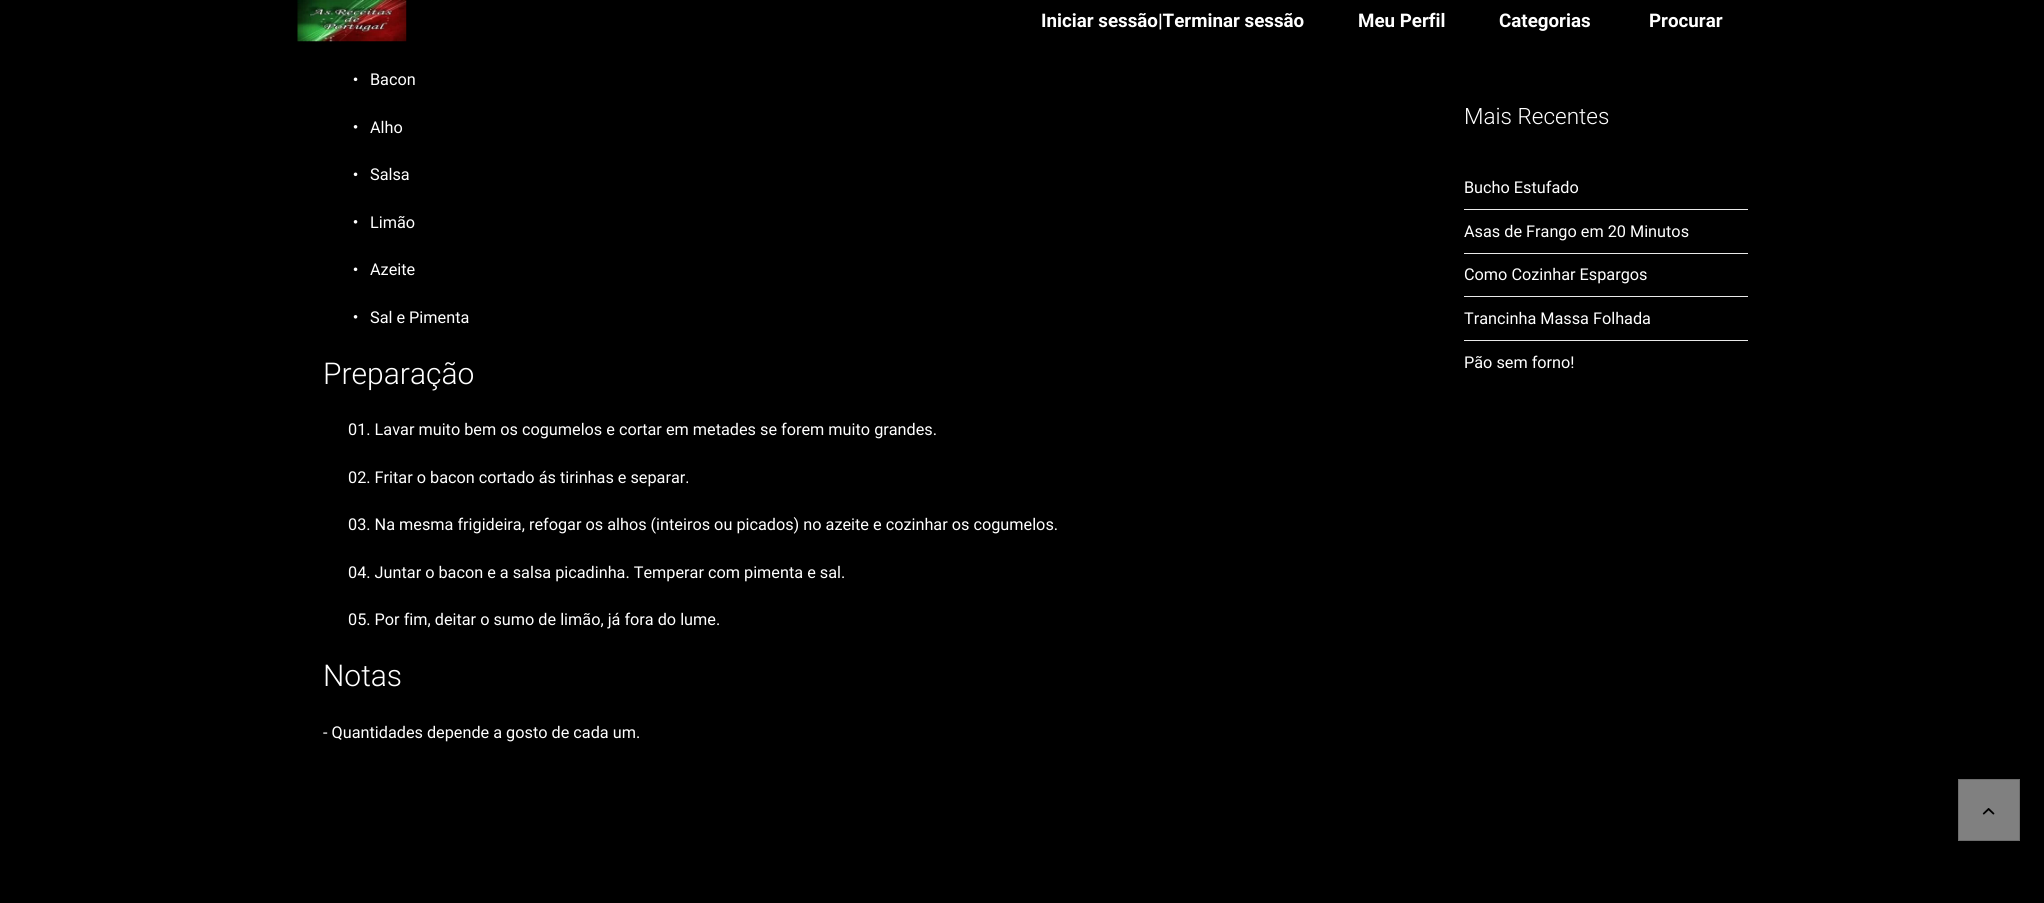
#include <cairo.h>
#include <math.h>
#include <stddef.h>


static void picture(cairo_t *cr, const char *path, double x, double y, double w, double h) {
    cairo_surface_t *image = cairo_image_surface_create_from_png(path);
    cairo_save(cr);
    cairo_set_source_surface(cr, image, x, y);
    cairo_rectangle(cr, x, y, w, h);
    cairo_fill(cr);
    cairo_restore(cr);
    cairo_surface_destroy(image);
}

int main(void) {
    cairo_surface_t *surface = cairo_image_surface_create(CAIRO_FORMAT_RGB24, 2044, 903);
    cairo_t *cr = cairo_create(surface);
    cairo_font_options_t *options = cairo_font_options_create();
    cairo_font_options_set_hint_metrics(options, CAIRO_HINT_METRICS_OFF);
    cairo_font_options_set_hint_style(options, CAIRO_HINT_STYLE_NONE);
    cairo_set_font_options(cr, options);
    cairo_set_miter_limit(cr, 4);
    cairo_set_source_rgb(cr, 0, 0, 0);
    cairo_paint(cr);
    picture(cr, "img1.png", 297, 0, 110, 42);
    cairo_select_font_face(cr, "Roboto", CAIRO_FONT_SLANT_NORMAL, CAIRO_FONT_WEIGHT_BOLD);
    cairo_set_font_size(cr, 18.75);
    cairo_set_source_rgb(cr, 1, 1, 1);
    cairo_move_to(cr, 1041, 27);
    cairo_show_text(cr, "Iniciar sessão|Terminar sessão");
    cairo_move_to(cr, 1358, 27);
    cairo_show_text(cr, "Meu Perfil");
    cairo_move_to(cr, 1499, 27);
    cairo_show_text(cr, "Categorias");
    cairo_move_to(cr, 1649, 27);
    cairo_show_text(cr, "Procurar");
    picture(cr, "img2.png", 353, 77, 5, 5);
    cairo_select_font_face(cr, "Roboto", CAIRO_FONT_SLANT_NORMAL, CAIRO_FONT_WEIGHT_NORMAL);
    cairo_set_font_size(cr, 16.25);
    cairo_move_to(cr, 370, 85);
    cairo_show_text(cr, "Bacon");
    picture(cr, "img3.png", 353, 125, 5, 4);
    cairo_move_to(cr, 370, 133);
    cairo_show_text(cr, "Alho");
    picture(cr, "img2.png", 353, 172, 5, 5);
    cairo_move_to(cr, 370, 180);
    cairo_show_text(cr, "Salsa");
    picture(cr, "img3.png", 353, 220, 5, 4);
    cairo_move_to(cr, 370, 228);
    cairo_show_text(cr, "Limão");
    picture(cr, "img2.png", 353, 267, 5, 5);
    cairo_move_to(cr, 370, 275);
    cairo_show_text(cr, "Azeite");
    picture(cr, "img3.png", 353, 315, 5, 4);
    cairo_move_to(cr, 370, 323);
    cairo_show_text(cr, "Sal e Pimenta");
    cairo_select_font_face(cr, "Roboto Light", CAIRO_FONT_SLANT_NORMAL, CAIRO_FONT_WEIGHT_NORMAL);
    cairo_set_font_size(cr, 30);
    cairo_move_to(cr, 323, 384);
    cairo_show_text(cr, "Preparação");
    cairo_select_font_face(cr, "Roboto", CAIRO_FONT_SLANT_NORMAL, CAIRO_FONT_WEIGHT_NORMAL);
    cairo_set_font_size(cr, 16.25);
    cairo_move_to(cr, 348, 435);
    cairo_show_text(cr, "01. Lavar muito bem os cogumelos e cortar em metades se forem muito grandes.");
    cairo_move_to(cr, 348, 483);
    cairo_show_text(cr, "02. Fritar o bacon cortado ás tirinhas e separar.");
    cairo_move_to(cr, 348, 530);
    cairo_show_text(cr, "03. Na mesma frigideira, refogar os alhos (inteiros ou picados) no azeite e cozinhar os cogumelos.");
    cairo_move_to(cr, 348, 578);
    cairo_show_text(cr, "04. Juntar o bacon e a salsa picadinha. Temperar com pimenta e sal.");
    cairo_move_to(cr, 348, 625);
    cairo_show_text(cr, "05. Por fim, deitar o sumo de limão, já fora do lume.");
    cairo_select_font_face(cr, "Roboto Light", CAIRO_FONT_SLANT_NORMAL, CAIRO_FONT_WEIGHT_NORMAL);
    cairo_set_font_size(cr, 30);
    cairo_move_to(cr, 323, 686);
    cairo_show_text(cr, "Notas");
    cairo_select_font_face(cr, "Roboto", CAIRO_FONT_SLANT_NORMAL, CAIRO_FONT_WEIGHT_NORMAL);
    cairo_set_font_size(cr, 16.25);
    cairo_move_to(cr, 323, 738);
    cairo_show_text(cr, "- Quantidades depende a gosto de cada um.");
    cairo_select_font_face(cr, "Roboto Light", CAIRO_FONT_SLANT_NORMAL, CAIRO_FONT_WEIGHT_NORMAL);
    cairo_set_font_size(cr, 22.5);
    cairo_move_to(cr, 1464, 124);
    cairo_show_text(cr, "Mais Recentes");
    cairo_select_font_face(cr, "Roboto", CAIRO_FONT_SLANT_NORMAL, CAIRO_FONT_WEIGHT_NORMAL);
    cairo_set_font_size(cr, 16.25);
    cairo_move_to(cr, 1464, 193);
    cairo_show_text(cr, "Bucho Estufado");
    cairo_set_source_rgb(cr, 0.914, 0.914, 0.914);
    cairo_rectangle(cr, 1464, 209, 284, 1);
    cairo_fill(cr);
    cairo_set_source_rgb(cr, 1, 1, 1);
    cairo_move_to(cr, 1464, 237);
    cairo_show_text(cr, "Asas de Frango em 20 Minutos");
    cairo_set_source_rgb(cr, 0.914, 0.914, 0.914);
    cairo_rectangle(cr, 1464, 253, 284, 1);
    cairo_fill(cr);
    cairo_set_source_rgb(cr, 1, 1, 1);
    cairo_move_to(cr, 1464, 280);
    cairo_show_text(cr, "Como Cozinhar Espargos");
    cairo_set_source_rgb(cr, 0.914, 0.914, 0.914);
    cairo_rectangle(cr, 1464, 296, 284, 1);
    cairo_fill(cr);
    cairo_set_source_rgb(cr, 1, 1, 1);
    cairo_move_to(cr, 1464, 324);
    cairo_show_text(cr, "Trancinha Massa Folhada");
    cairo_set_source_rgb(cr, 0.914, 0.914, 0.914);
    cairo_rectangle(cr, 1464, 340, 284, 1);
    cairo_fill(cr);
    cairo_set_source_rgb(cr, 1, 1, 1);
    cairo_move_to(cr, 1464, 368);
    cairo_show_text(cr, "Pão sem forno!");
    cairo_set_source_rgb(cr, 0.502, 0.502, 0.502);
    cairo_rectangle(cr, 1958.5, 779.5, 61, 61);
    cairo_fill_preserve(cr);
    cairo_set_source_rgb(cr, 0.427, 0.427, 0.427);
    cairo_set_line_width(cr, 1);
    cairo_stroke(cr);
    picture(cr, "img4.png", 1982, 808, 13, 7);
    cairo_surface_write_to_png(surface, "page.png");
    cairo_font_options_destroy(options);
    cairo_destroy(cr);
    cairo_surface_destroy(surface);
    return 0;
}
